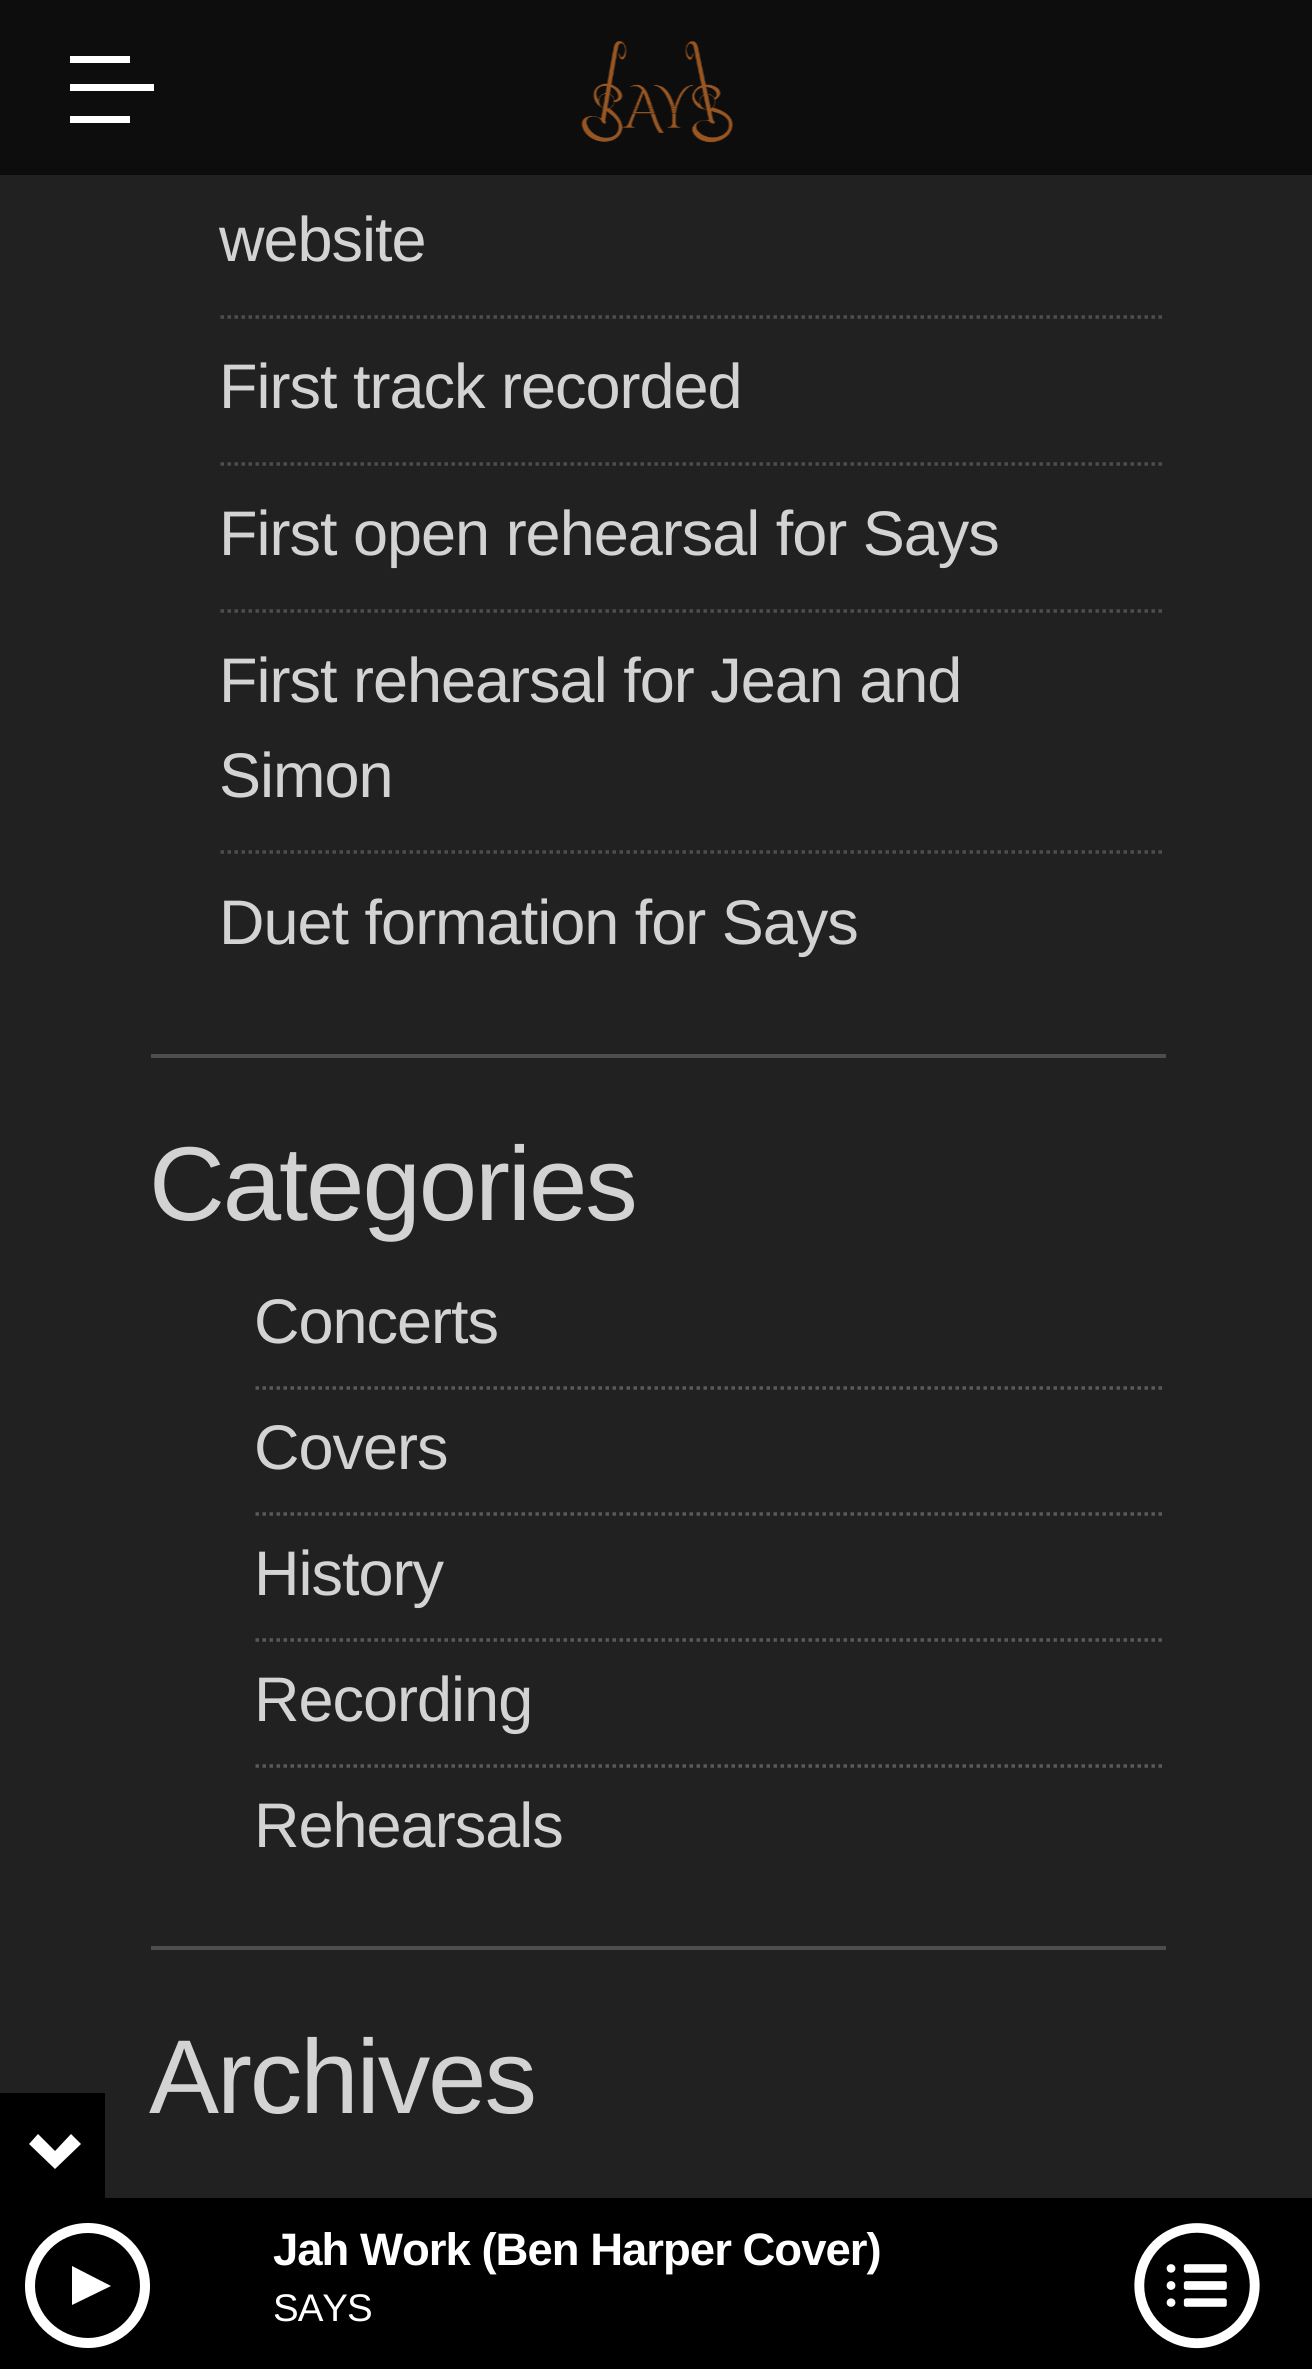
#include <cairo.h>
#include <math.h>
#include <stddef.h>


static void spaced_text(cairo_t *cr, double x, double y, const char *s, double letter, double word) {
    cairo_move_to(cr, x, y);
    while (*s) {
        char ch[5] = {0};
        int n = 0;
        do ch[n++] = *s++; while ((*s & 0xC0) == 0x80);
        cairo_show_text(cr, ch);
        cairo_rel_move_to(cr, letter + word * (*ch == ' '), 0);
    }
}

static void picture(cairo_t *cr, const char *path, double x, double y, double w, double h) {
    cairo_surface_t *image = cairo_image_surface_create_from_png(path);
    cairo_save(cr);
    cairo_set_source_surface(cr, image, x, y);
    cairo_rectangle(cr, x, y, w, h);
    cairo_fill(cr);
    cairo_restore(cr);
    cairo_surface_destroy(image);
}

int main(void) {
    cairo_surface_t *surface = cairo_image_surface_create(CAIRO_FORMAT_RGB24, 1312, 2369);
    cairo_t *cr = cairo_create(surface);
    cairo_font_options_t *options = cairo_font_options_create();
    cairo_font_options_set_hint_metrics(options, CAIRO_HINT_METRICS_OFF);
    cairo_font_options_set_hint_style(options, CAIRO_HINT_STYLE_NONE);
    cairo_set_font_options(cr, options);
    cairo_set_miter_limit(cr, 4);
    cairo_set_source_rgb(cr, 0.129, 0.129, 0.129);
    cairo_paint(cr);
    cairo_set_source_rgba(cr, 0.039, 0.039, 0.039, 0.85);
    cairo_rectangle(cr, 0, 0, 1312, 175);
    cairo_fill(cr);
    cairo_set_source_rgb(cr, 1, 1, 1);
    cairo_rectangle(cr, 70, 56, 60, 7);
    cairo_fill(cr);
    cairo_rectangle(cr, 70, 84, 84, 7);
    cairo_fill(cr);
    cairo_rectangle(cr, 70, 116, 60, 7);
    cairo_fill(cr);
    picture(cr, "img1.png", 581, 41, 152, 102);
    cairo_set_source_rgb(cr, 0.302, 0.302, 0.302);
    cairo_rectangle(cr, 151, 1054, 1015, 4);
    cairo_fill(cr);
    cairo_new_path(cr);
    cairo_move_to(cr, 220.5, 317);
    cairo_line_to(cr, 1165.5, 317);
    cairo_set_line_width(cr, 3.5);
    cairo_set_dash(cr, (double[]){3.5, 3.5}, 2, 0);
    cairo_stroke(cr);
    cairo_select_font_face(cr, "Liberation Sans", CAIRO_FONT_SLANT_NORMAL, CAIRO_FONT_WEIGHT_NORMAL);
    cairo_set_font_size(cr, 63);
    cairo_set_source_rgb(cr, 0.827, 0.827, 0.827);
    spaced_text(cr, 219, 261, "website", -1, 0);
    cairo_new_path(cr);
    cairo_move_to(cr, 220.5, 464);
    cairo_line_to(cr, 1165.5, 464);
    cairo_set_source_rgb(cr, 0.302, 0.302, 0.302);
    cairo_stroke(cr);
    cairo_set_source_rgb(cr, 0.827, 0.827, 0.827);
    spaced_text(cr, 219, 408, "First track recorded", -1, 0);
    cairo_new_path(cr);
    cairo_move_to(cr, 220.5, 611);
    cairo_line_to(cr, 1165.5, 611);
    cairo_set_source_rgb(cr, 0.302, 0.302, 0.302);
    cairo_stroke(cr);
    cairo_set_source_rgb(cr, 0.827, 0.827, 0.827);
    spaced_text(cr, 219, 555, "First open rehearsal for Says", -1, 0);
    cairo_new_path(cr);
    cairo_move_to(cr, 220.5, 852);
    cairo_line_to(cr, 1165.5, 852);
    cairo_set_source_rgb(cr, 0.302, 0.302, 0.302);
    cairo_stroke(cr);
    cairo_set_source_rgb(cr, 0.827, 0.827, 0.827);
    spaced_text(cr, 219, 702, "First rehearsal for Jean and", -1, 0);
    spaced_text(cr, 219, 797, "Simon", -1, 0);
    spaced_text(cr, 219, 944, "Duet formation for Says", -1, 0);
    cairo_set_source_rgb(cr, 0.302, 0.302, 0.302);
    cairo_rectangle(cr, 151, 1946, 1015, 4);
    cairo_fill(cr);
    cairo_set_font_size(cr, 105);
    cairo_set_source_rgb(cr, 0.827, 0.827, 0.827);
    spaced_text(cr, 149, 1220, "Categories", -2.1, 0);
    cairo_new_path(cr);
    cairo_move_to(cr, 255.5, 1388);
    cairo_line_to(cr, 1165.5, 1388);
    cairo_set_source_rgb(cr, 0.349, 0.349, 0.349);
    cairo_stroke(cr);
    cairo_set_font_size(cr, 63);
    cairo_set_source_rgb(cr, 0.827, 0.827, 0.827);
    spaced_text(cr, 254, 1343, "Concerts", -1, 0);
    cairo_new_path(cr);
    cairo_move_to(cr, 255.5, 1514);
    cairo_line_to(cr, 1165.5, 1514);
    cairo_set_source_rgb(cr, 0.349, 0.349, 0.349);
    cairo_stroke(cr);
    cairo_set_source_rgb(cr, 0.827, 0.827, 0.827);
    spaced_text(cr, 254, 1469, "Covers", -1, 0);
    cairo_new_path(cr);
    cairo_move_to(cr, 255.5, 1640);
    cairo_line_to(cr, 1165.5, 1640);
    cairo_set_source_rgb(cr, 0.349, 0.349, 0.349);
    cairo_stroke(cr);
    cairo_set_source_rgb(cr, 0.827, 0.827, 0.827);
    spaced_text(cr, 254, 1595, "History", -1, 0);
    cairo_new_path(cr);
    cairo_move_to(cr, 255.5, 1766);
    cairo_line_to(cr, 1165.5, 1766);
    cairo_set_source_rgb(cr, 0.349, 0.349, 0.349);
    cairo_stroke(cr);
    cairo_set_source_rgb(cr, 0.827, 0.827, 0.827);
    spaced_text(cr, 254, 1721, "Recording", -1, 0);
    spaced_text(cr, 254, 1847, "Rehearsals", -1, 0);
    cairo_set_font_size(cr, 105);
    spaced_text(cr, 149, 2113, "Archives", -2.1, 0);
    cairo_set_source_rgb(cr, 0, 0, 0);
    cairo_rectangle(cr, 0, 2198, 1312, 171);
    cairo_fill(cr);
    cairo_rectangle(cr, 0, 2093, 105, 105);
    cairo_fill(cr);
    cairo_set_source_rgb(cr, 1, 1, 1);
    cairo_new_path(cr);
    cairo_move_to(cr, 29, 2144);
    cairo_line_to(cr, 38, 2134);
    cairo_line_to(cr, 55, 2151);
    cairo_line_to(cr, 71, 2134);
    cairo_line_to(cr, 81, 2144);
    cairo_line_to(cr, 55, 2169);
    cairo_close_path(cr);
    cairo_fill(cr);
    cairo_new_path(cr);
    cairo_move_to(cr, 88, 2223);
    cairo_curve_to(cr, 122, 2223, 150, 2251, 150, 2286);
    cairo_curve_to(cr, 150, 2320, 122, 2348, 88, 2348);
    cairo_curve_to(cr, 53, 2348, 25, 2320, 25, 2286);
    cairo_curve_to(cr, 25, 2251, 53, 2223, 88, 2223);
    cairo_close_path(cr);
    cairo_move_to(cr, 88, 2338);
    cairo_curve_to(cr, 116, 2338, 140, 2314, 140, 2286);
    cairo_curve_to(cr, 140, 2257, 117, 2233, 88, 2233);
    cairo_curve_to(cr, 59, 2233, 35, 2257, 35, 2286);
    cairo_curve_to(cr, 35, 2314, 59, 2338, 88, 2338);
    cairo_close_path(cr);
    cairo_move_to(cr, 72, 2305);
    cairo_line_to(cr, 72, 2266);
    cairo_line_to(cr, 111, 2286);
    cairo_close_path(cr);
    cairo_fill(cr);
    cairo_select_font_face(cr, "Liberation Sans", CAIRO_FONT_SLANT_NORMAL, CAIRO_FONT_WEIGHT_BOLD);
    cairo_set_font_size(cr, 45.5);
    spaced_text(cr, 273, 2265, "Jah Work (Ben Harper Cover)", -1, 0);
    cairo_select_font_face(cr, "Liberation Sans", CAIRO_FONT_SLANT_NORMAL, CAIRO_FONT_WEIGHT_NORMAL);
    cairo_set_font_size(cr, 38.5);
    spaced_text(cr, 273, 2321, "SAYS", -1, 0);
    picture(cr, "img2.png", 1134, 2223, 126, 126);
    cairo_surface_write_to_png(surface, "page.png");
    cairo_font_options_destroy(options);
    cairo_destroy(cr);
    cairo_surface_destroy(surface);
    return 0;
}
